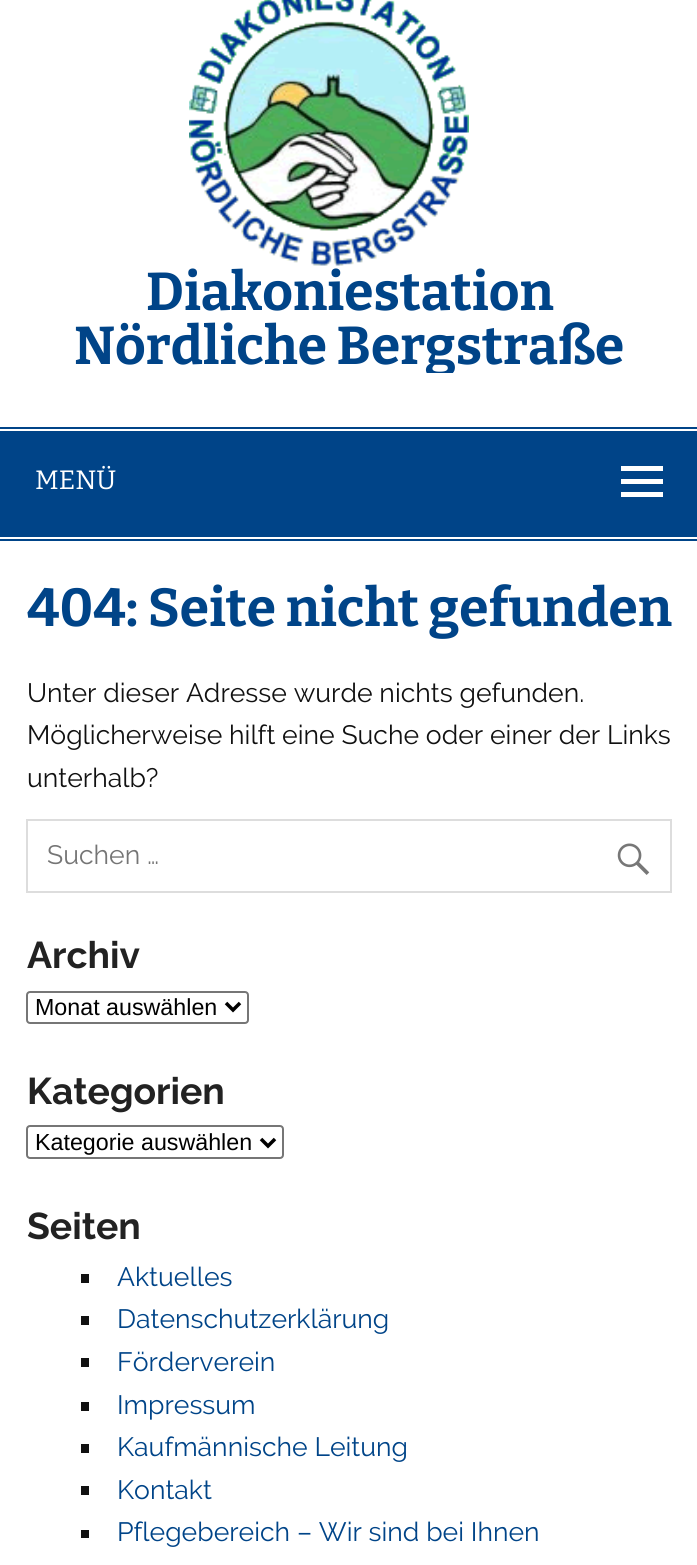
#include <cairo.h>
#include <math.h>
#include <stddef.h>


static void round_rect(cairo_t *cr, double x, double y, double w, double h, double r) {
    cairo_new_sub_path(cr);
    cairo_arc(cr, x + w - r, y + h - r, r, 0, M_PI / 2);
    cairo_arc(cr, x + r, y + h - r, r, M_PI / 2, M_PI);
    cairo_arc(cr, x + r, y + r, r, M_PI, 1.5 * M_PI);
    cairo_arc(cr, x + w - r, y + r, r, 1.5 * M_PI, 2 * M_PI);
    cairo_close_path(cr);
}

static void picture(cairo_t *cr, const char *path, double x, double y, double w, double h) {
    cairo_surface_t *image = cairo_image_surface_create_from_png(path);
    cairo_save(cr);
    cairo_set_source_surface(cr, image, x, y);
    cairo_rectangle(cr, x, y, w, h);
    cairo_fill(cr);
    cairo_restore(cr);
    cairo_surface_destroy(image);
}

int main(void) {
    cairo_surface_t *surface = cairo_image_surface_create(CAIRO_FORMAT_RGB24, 697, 1565);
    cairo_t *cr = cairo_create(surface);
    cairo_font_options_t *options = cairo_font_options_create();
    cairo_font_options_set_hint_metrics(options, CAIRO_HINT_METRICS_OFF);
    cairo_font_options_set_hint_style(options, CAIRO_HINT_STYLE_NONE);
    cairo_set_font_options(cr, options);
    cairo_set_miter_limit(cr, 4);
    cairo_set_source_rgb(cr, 1, 1, 1);
    cairo_paint(cr);
    picture(cr, "img1.png", 189, 0, 280, 266);
    cairo_select_font_face(cr, "Bitter", CAIRO_FONT_SLANT_NORMAL, CAIRO_FONT_WEIGHT_BOLD);
    cairo_set_font_size(cr, 53.25);
    cairo_set_source_rgb(cr, 0, 0.267, 0.533);
    cairo_move_to(cr, 146, 310);
    cairo_show_text(cr, "Diakoniestation");
    cairo_save(cr);
    cairo_rectangle(cr, 53, 0, 593, 373);
    cairo_clip(cr);
    cairo_move_to(cr, 74, 364);
    cairo_show_text(cr, "Nördliche Bergstraße");
    cairo_restore(cr);
    cairo_rectangle(cr, 0, 427, 697, 2);
    cairo_fill(cr);
    cairo_rectangle(cr, 0, 539, 697, 2);
    cairo_fill(cr);
    cairo_rectangle(cr, 0, 431, 697, 106);
    cairo_fill(cr);
    cairo_select_font_face(cr, "Bitter", CAIRO_FONT_SLANT_NORMAL, CAIRO_FONT_WEIGHT_NORMAL);
    cairo_set_font_size(cr, 26.6);
    cairo_set_source_rgb(cr, 1, 1, 1);
    cairo_move_to(cr, 35, 489);
    cairo_show_text(cr, "MENÜ");
    cairo_new_path(cr);
    cairo_move_to(cr, 621, 497);
    cairo_line_to(cr, 621, 492);
    cairo_line_to(cr, 663, 492);
    cairo_line_to(cr, 663, 497);
    cairo_close_path(cr);
    cairo_move_to(cr, 621, 466);
    cairo_line_to(cr, 663, 466);
    cairo_line_to(cr, 663, 471);
    cairo_line_to(cr, 621, 471);
    cairo_close_path(cr);
    cairo_move_to(cr, 621, 484);
    cairo_line_to(cr, 621, 479);
    cairo_line_to(cr, 663, 479);
    cairo_line_to(cr, 663, 484);
    cairo_close_path(cr);
    cairo_fill(cr);
    cairo_select_font_face(cr, "Bitter", CAIRO_FONT_SLANT_NORMAL, CAIRO_FONT_WEIGHT_BOLD);
    cairo_set_font_size(cr, 53.25);
    cairo_set_source_rgb(cr, 0, 0.267, 0.533);
    cairo_move_to(cr, 27, 626);
    cairo_show_text(cr, "404: Seite nicht gefunden");
    cairo_select_font_face(cr, "Raleway", CAIRO_FONT_SLANT_NORMAL, CAIRO_FONT_WEIGHT_NORMAL);
    cairo_set_font_size(cr, 26.6);
    cairo_set_source_rgb(cr, 0.067, 0.067, 0.067);
    cairo_move_to(cr, 27, 702);
    cairo_show_text(cr, "Unter dieser Adresse wurde nichts gefunden.");
    cairo_move_to(cr, 27, 744);
    cairo_show_text(cr, "Möglicherweise hilft eine Suche oder einer der Links");
    cairo_move_to(cr, 27, 787);
    cairo_show_text(cr, "unterhalb?");
    cairo_rectangle(cr, 27, 820, 644, 72);
    cairo_set_source_rgb(cr, 0.867, 0.867, 0.867);
    cairo_stroke(cr);
    cairo_set_source_rgb(cr, 0.459, 0.459, 0.459);
    cairo_move_to(cr, 47, 864);
    cairo_show_text(cr, "Suchen …");
    picture(cr, "img2.png", 617, 843, 33, 32);
    cairo_select_font_face(cr, "Raleway", CAIRO_FONT_SLANT_NORMAL, CAIRO_FONT_WEIGHT_BOLD);
    cairo_set_font_size(cr, 37.25);
    cairo_set_source_rgb(cr, 0.133, 0.133, 0.133);
    cairo_move_to(cr, 27, 968);
    cairo_show_text(cr, "Archiv");
    round_rect(cr, 27, 992, 221, 31, 3);
    cairo_set_source_rgb(cr, 0.463, 0.463, 0.463);
    cairo_stroke(cr);
    cairo_new_path(cr);
    cairo_move_to(cr, 226, 1003);
    cairo_line_to(cr, 233, 1010);
    cairo_line_to(cr, 240, 1003);
    cairo_set_source_rgb(cr, 0, 0, 0);
    cairo_set_line_width(cr, 3.5);
    cairo_stroke(cr);
    cairo_select_font_face(cr, "Liberation Sans", CAIRO_FONT_SLANT_NORMAL, CAIRO_FONT_WEIGHT_NORMAL);
    cairo_set_font_size(cr, 23.25);
    cairo_move_to(cr, 35, 1015);
    cairo_show_text(cr, "Monat auswählen");
    cairo_select_font_face(cr, "Raleway", CAIRO_FONT_SLANT_NORMAL, CAIRO_FONT_WEIGHT_BOLD);
    cairo_set_font_size(cr, 37.25);
    cairo_set_source_rgb(cr, 0.133, 0.133, 0.133);
    cairo_move_to(cr, 27, 1104);
    cairo_show_text(cr, "Kategorien");
    round_rect(cr, 27, 1126, 256, 32, 3);
    cairo_set_source_rgb(cr, 0.463, 0.463, 0.463);
    cairo_set_line_width(cr, 2);
    cairo_stroke(cr);
    cairo_new_path(cr);
    cairo_move_to(cr, 261, 1139);
    cairo_line_to(cr, 268, 1146);
    cairo_line_to(cr, 275, 1139);
    cairo_set_source_rgb(cr, 0, 0, 0);
    cairo_set_line_width(cr, 3.5);
    cairo_stroke(cr);
    cairo_select_font_face(cr, "Liberation Sans", CAIRO_FONT_SLANT_NORMAL, CAIRO_FONT_WEIGHT_NORMAL);
    cairo_set_font_size(cr, 23.25);
    cairo_move_to(cr, 35, 1150);
    cairo_show_text(cr, "Kategorie auswählen");
    cairo_select_font_face(cr, "Raleway", CAIRO_FONT_SLANT_NORMAL, CAIRO_FONT_WEIGHT_BOLD);
    cairo_set_font_size(cr, 37.25);
    cairo_set_source_rgb(cr, 0.133, 0.133, 0.133);
    cairo_move_to(cr, 27, 1239);
    cairo_show_text(cr, "Seiten");
    cairo_set_source_rgb(cr, 0.067, 0.067, 0.067);
    cairo_rectangle(cr, 81, 1274, 8, 9);
    cairo_fill(cr);
    cairo_select_font_face(cr, "Raleway", CAIRO_FONT_SLANT_NORMAL, CAIRO_FONT_WEIGHT_NORMAL);
    cairo_set_font_size(cr, 26.6);
    cairo_set_source_rgb(cr, 0, 0.267, 0.533);
    cairo_move_to(cr, 117, 1286);
    cairo_show_text(cr, "Aktuelles");
    cairo_set_source_rgb(cr, 0.067, 0.067, 0.067);
    cairo_rectangle(cr, 81, 1316, 8, 9);
    cairo_fill(cr);
    cairo_set_source_rgb(cr, 0, 0.267, 0.533);
    cairo_move_to(cr, 117, 1328);
    cairo_show_text(cr, "Datenschutzerklärung");
    cairo_set_source_rgb(cr, 0.067, 0.067, 0.067);
    cairo_rectangle(cr, 81, 1358, 8, 9);
    cairo_fill(cr);
    cairo_set_source_rgb(cr, 0, 0.267, 0.533);
    cairo_move_to(cr, 117, 1371);
    cairo_show_text(cr, "Förderverein");
    cairo_set_source_rgb(cr, 0.067, 0.067, 0.067);
    cairo_rectangle(cr, 81, 1402, 8, 9);
    cairo_fill(cr);
    cairo_set_source_rgb(cr, 0, 0.267, 0.533);
    cairo_move_to(cr, 117, 1414);
    cairo_show_text(cr, "Impressum");
    cairo_set_source_rgb(cr, 0.067, 0.067, 0.067);
    cairo_rectangle(cr, 81, 1444, 8, 9);
    cairo_fill(cr);
    cairo_set_source_rgb(cr, 0, 0.267, 0.533);
    cairo_move_to(cr, 117, 1456);
    cairo_show_text(cr, "Kaufmännische Leitung");
    cairo_set_source_rgb(cr, 0.067, 0.067, 0.067);
    cairo_rectangle(cr, 81, 1486, 8, 9);
    cairo_fill(cr);
    cairo_set_source_rgb(cr, 0, 0.267, 0.533);
    cairo_move_to(cr, 117, 1499);
    cairo_show_text(cr, "Kontakt");
    cairo_set_source_rgb(cr, 0.067, 0.067, 0.067);
    cairo_rectangle(cr, 81, 1530, 8, 8);
    cairo_fill(cr);
    cairo_set_source_rgb(cr, 0, 0.267, 0.533);
    cairo_move_to(cr, 117, 1541);
    cairo_show_text(cr, "Pflegebereich – Wir sind bei Ihnen");
    cairo_surface_write_to_png(surface, "page.png");
    cairo_font_options_destroy(options);
    cairo_destroy(cr);
    cairo_surface_destroy(surface);
    return 0;
}
